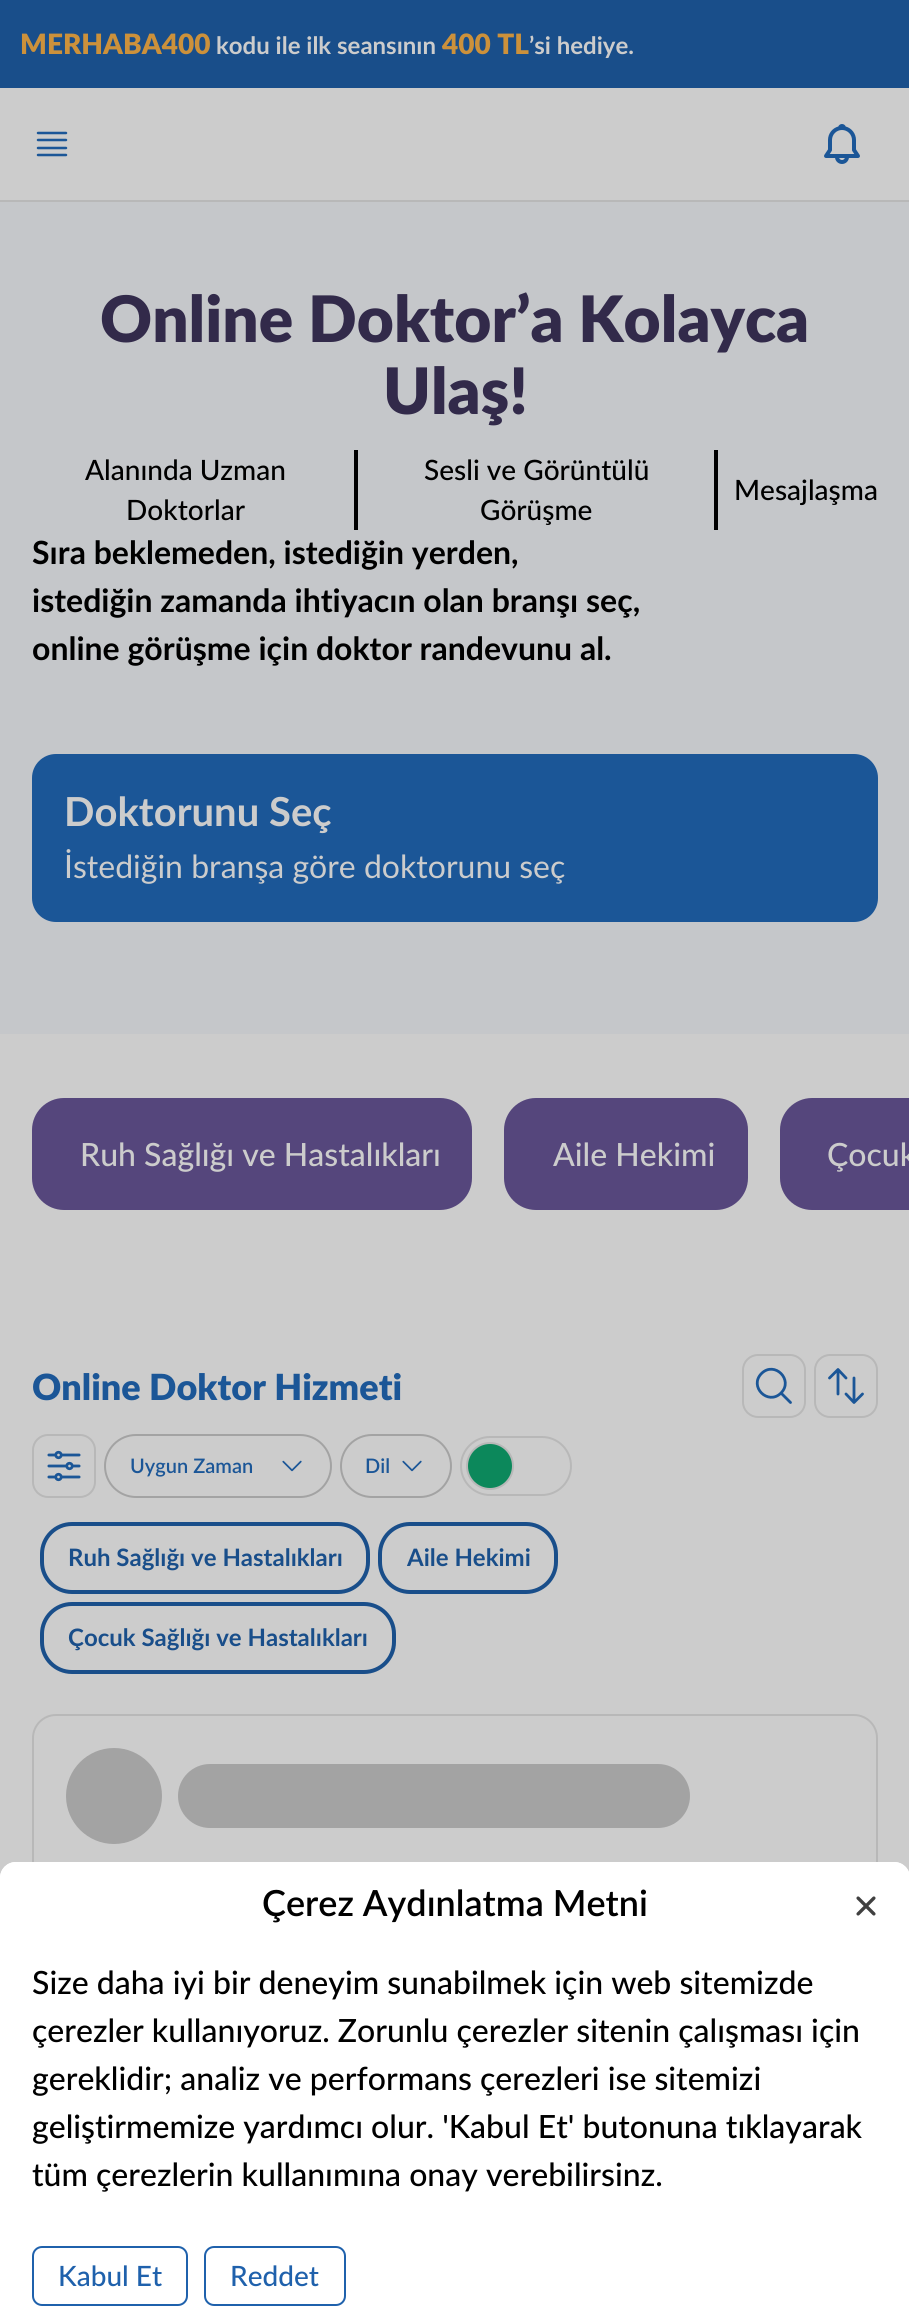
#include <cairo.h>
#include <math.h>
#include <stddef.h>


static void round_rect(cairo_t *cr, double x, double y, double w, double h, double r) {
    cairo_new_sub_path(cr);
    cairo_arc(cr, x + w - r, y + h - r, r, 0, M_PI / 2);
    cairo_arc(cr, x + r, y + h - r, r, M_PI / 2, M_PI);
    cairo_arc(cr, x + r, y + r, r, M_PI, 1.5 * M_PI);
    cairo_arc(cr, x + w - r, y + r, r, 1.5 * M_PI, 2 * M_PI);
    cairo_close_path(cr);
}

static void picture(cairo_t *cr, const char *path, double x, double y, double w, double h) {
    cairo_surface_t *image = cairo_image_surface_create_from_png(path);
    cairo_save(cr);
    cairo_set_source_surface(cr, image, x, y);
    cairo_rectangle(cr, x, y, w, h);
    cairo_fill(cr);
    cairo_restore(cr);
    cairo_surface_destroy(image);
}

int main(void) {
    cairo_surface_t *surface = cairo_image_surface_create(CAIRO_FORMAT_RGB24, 909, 2321);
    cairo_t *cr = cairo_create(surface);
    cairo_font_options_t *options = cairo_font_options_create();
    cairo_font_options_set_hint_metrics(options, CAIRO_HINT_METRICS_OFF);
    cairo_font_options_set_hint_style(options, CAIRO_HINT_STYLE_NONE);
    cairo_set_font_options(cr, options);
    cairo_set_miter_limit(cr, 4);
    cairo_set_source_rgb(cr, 0.8, 0.8, 0.8);
    cairo_paint(cr);
    cairo_set_source_rgb(cr, 0.722, 0.722, 0.722);
    cairo_rectangle(cr, 0, 200, 909, 2);
    cairo_fill(cr);
    cairo_set_source_rgb(cr, 0.098, 0.306, 0.541);
    cairo_rectangle(cr, 0, 0, 909, 88);
    cairo_fill(cr);
    cairo_select_font_face(cr, "Lato ExtraBold", CAIRO_FONT_SLANT_NORMAL, CAIRO_FONT_WEIGHT_NORMAL);
    cairo_set_font_size(cr, 28);
    cairo_set_source_rgb(cr, 0.8, 0.569, 0.231);
    cairo_move_to(cr, 20, 54);
    cairo_show_text(cr, "MERHABA400");
    cairo_select_font_face(cr, "Lato", CAIRO_FONT_SLANT_NORMAL, CAIRO_FONT_WEIGHT_BOLD);
    cairo_set_font_size(cr, 24);
    cairo_set_source_rgb(cr, 0.8, 0.8, 0.8);
    cairo_move_to(cr, 216, 54);
    cairo_show_text(cr, "kodu ile ilk seansının");
    cairo_select_font_face(cr, "Lato ExtraBold", CAIRO_FONT_SLANT_NORMAL, CAIRO_FONT_WEIGHT_NORMAL);
    cairo_set_font_size(cr, 28);
    cairo_set_source_rgb(cr, 0.8, 0.569, 0.231);
    cairo_move_to(cr, 442, 54);
    cairo_show_text(cr, "400 TL");
    cairo_select_font_face(cr, "Lato", CAIRO_FONT_SLANT_NORMAL, CAIRO_FONT_WEIGHT_BOLD);
    cairo_set_font_size(cr, 24);
    cairo_set_source_rgb(cr, 0.8, 0.8, 0.8);
    cairo_move_to(cr, 529, 54);
    cairo_show_text(cr, "’si hediye.");
    cairo_new_path(cr);
    cairo_move_to(cr, 38, 133);
    cairo_line_to(cr, 66, 133);
    cairo_move_to(cr, 38, 140);
    cairo_line_to(cr, 66, 140);
    cairo_move_to(cr, 38, 148);
    cairo_line_to(cr, 66, 148);
    cairo_move_to(cr, 38, 155);
    cairo_line_to(cr, 66, 155);
    cairo_set_source_rgb(cr, 0.106, 0.337, 0.592);
    cairo_set_line_width(cr, 2.5);
    cairo_set_line_cap(cr, CAIRO_LINE_CAP_ROUND);
    cairo_set_line_join(cr, CAIRO_LINE_JOIN_ROUND);
    cairo_stroke(cr);
    picture(cr, "img1.png", 824, 124, 36, 40);
    cairo_set_source_rgb(cr, 0.773, 0.78, 0.792);
    cairo_rectangle(cr, 0, 202, 909, 832);
    cairo_fill(cr);
    cairo_select_font_face(cr, "Lato ExtraBold", CAIRO_FONT_SLANT_NORMAL, CAIRO_FONT_WEIGHT_NORMAL);
    cairo_set_font_size(cr, 64);
    cairo_set_source_rgb(cr, 0.196, 0.165, 0.29);
    cairo_move_to(cr, 100, 342);
    cairo_show_text(cr, "Online Doktor’a Kolayca");
    cairo_move_to(cr, 383, 414);
    cairo_show_text(cr, "Ulaş!");
    cairo_set_source_rgb(cr, 0, 0, 0);
    cairo_rectangle(cr, 354, 450, 4, 80);
    cairo_fill(cr);
    cairo_select_font_face(cr, "Lato Medium", CAIRO_FONT_SLANT_NORMAL, CAIRO_FONT_WEIGHT_NORMAL);
    cairo_set_font_size(cr, 28);
    cairo_move_to(cr, 85, 480);
    cairo_show_text(cr, "Alanında Uzman");
    cairo_move_to(cr, 126, 520);
    cairo_show_text(cr, "Doktorlar");
    cairo_rectangle(cr, 714, 450, 4, 80);
    cairo_fill(cr);
    cairo_move_to(cr, 424, 480);
    cairo_show_text(cr, "Sesli ve Görüntülü");
    cairo_move_to(cr, 480, 520);
    cairo_show_text(cr, "Görüşme");
    cairo_move_to(cr, 734, 500);
    cairo_show_text(cr, "Mesajlaşma");
    cairo_select_font_face(cr, "Lato", CAIRO_FONT_SLANT_NORMAL, CAIRO_FONT_WEIGHT_BOLD);
    cairo_set_font_size(cr, 32);
    cairo_move_to(cr, 32, 564);
    cairo_show_text(cr, "Sıra beklemeden, istediğin yerden,");
    cairo_move_to(cr, 32, 612);
    cairo_show_text(cr, "istediğin zamanda ihtiyacın olan branşı seç,");
    cairo_move_to(cr, 32, 660);
    cairo_show_text(cr, "online görüşme için doktor randevunu al.");
    cairo_set_source_rgb(cr, 0.106, 0.337, 0.592);
    round_rect(cr, 32, 754, 846, 168, 24);
    cairo_fill(cr);
    cairo_set_font_size(cr, 40);
    cairo_set_source_rgb(cr, 0.8, 0.8, 0.8);
    cairo_move_to(cr, 64, 826);
    cairo_show_text(cr, "Doktorunu Seç");
    cairo_select_font_face(cr, "Lato", CAIRO_FONT_SLANT_NORMAL, CAIRO_FONT_WEIGHT_NORMAL);
    cairo_set_font_size(cr, 32);
    cairo_move_to(cr, 64, 878);
    cairo_show_text(cr, "İstediğin branşa göre doktorunu seç");
    cairo_set_source_rgb(cr, 0.333, 0.275, 0.486);
    round_rect(cr, 32, 1098, 440, 112, 32);
    cairo_fill(cr);
    cairo_select_font_face(cr, "Lato Medium", CAIRO_FONT_SLANT_NORMAL, CAIRO_FONT_WEIGHT_NORMAL);
    cairo_set_source_rgb(cr, 0.8, 0.8, 0.8);
    cairo_move_to(cr, 80, 1166);
    cairo_show_text(cr, "Ruh Sağlığı ve Hastalıkları");
    cairo_set_source_rgb(cr, 0.333, 0.275, 0.486);
    round_rect(cr, 504, 1098, 244, 112, 32);
    cairo_fill(cr);
    cairo_set_source_rgb(cr, 0.8, 0.8, 0.8);
    cairo_move_to(cr, 553, 1166);
    cairo_show_text(cr, "Aile Hekimi");
    cairo_set_source_rgb(cr, 0.333, 0.275, 0.486);
    cairo_new_path(cr);
    cairo_move_to(cr, 812, 1098);
    cairo_line_to(cr, 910, 1098);
    cairo_line_to(cr, 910, 1210);
    cairo_line_to(cr, 812, 1210);
    cairo_curve_to(cr, 794.5, 1210, 780, 1195.5, 780, 1178);
    cairo_line_to(cr, 780, 1130);
    cairo_curve_to(cr, 780, 1112.5, 794.5, 1098, 812, 1098);
    cairo_close_path(cr);
    cairo_fill(cr);
    cairo_set_source_rgb(cr, 0.8, 0.8, 0.8);
    cairo_move_to(cr, 827, 1166);
    cairo_show_text(cr, "Çocuk");
    cairo_select_font_face(cr, "Lato ExtraBold", CAIRO_FONT_SLANT_NORMAL, CAIRO_FONT_WEIGHT_NORMAL);
    cairo_set_font_size(cr, 36);
    cairo_set_source_rgb(cr, 0.106, 0.337, 0.592);
    cairo_move_to(cr, 32, 1400);
    cairo_show_text(cr, "Online Doktor Hizmeti");
    round_rect(cr, 743, 1355, 62, 62, 15);
    cairo_set_source_rgb(cr, 0.722, 0.722, 0.722);
    cairo_set_line_width(cr, 2);
    cairo_set_line_cap(cr, CAIRO_LINE_CAP_BUTT);
    cairo_set_line_join(cr, CAIRO_LINE_JOIN_MITER);
    cairo_stroke(cr);
    cairo_new_path(cr);
    cairo_move_to(cr, 790.5, 1402.5);
    cairo_line_to(cr, 781, 1393);
    cairo_move_to(cr, 781, 1393);
    cairo_curve_to(cr, 794, 1380, 774.5, 1360.5, 761.5, 1373.5);
    cairo_curve_to(cr, 748.5, 1386.5, 768, 1406, 781, 1393);
    cairo_close_path(cr);
    cairo_set_source_rgb(cr, 0.106, 0.337, 0.592);
    cairo_set_line_width(cr, 2.8);
    cairo_set_line_cap(cr, CAIRO_LINE_CAP_ROUND);
    cairo_set_line_join(cr, CAIRO_LINE_JOIN_ROUND);
    cairo_stroke(cr);
    round_rect(cr, 815, 1355, 62, 62, 15);
    cairo_set_source_rgb(cr, 0.722, 0.722, 0.722);
    cairo_set_line_width(cr, 2);
    cairo_set_line_cap(cr, CAIRO_LINE_CAP_BUTT);
    cairo_set_line_join(cr, CAIRO_LINE_JOIN_MITER);
    cairo_stroke(cr);
    cairo_new_path(cr);
    cairo_move_to(cr, 829.5, 1378);
    cairo_line_to(cr, 838, 1369.5);
    cairo_move_to(cr, 838, 1369.5);
    cairo_line_to(cr, 846, 1378);
    cairo_move_to(cr, 838, 1369.5);
    cairo_line_to(cr, 838, 1394);
    cairo_move_to(cr, 862.5, 1394);
    cairo_line_to(cr, 854, 1402.5);
    cairo_move_to(cr, 854, 1402.5);
    cairo_line_to(cr, 846, 1394);
    cairo_move_to(cr, 854, 1402.5);
    cairo_line_to(cr, 854, 1378);
    cairo_set_source_rgb(cr, 0.106, 0.337, 0.592);
    cairo_set_line_width(cr, 2.8);
    cairo_set_line_cap(cr, CAIRO_LINE_CAP_ROUND);
    cairo_set_line_join(cr, CAIRO_LINE_JOIN_ROUND);
    cairo_stroke(cr);
    round_rect(cr, 33, 1435, 62, 62, 15);
    cairo_set_source_rgb(cr, 0.722, 0.722, 0.722);
    cairo_set_line_width(cr, 2);
    cairo_set_line_cap(cr, CAIRO_LINE_CAP_BUTT);
    cairo_set_line_join(cr, CAIRO_LINE_JOIN_MITER);
    cairo_stroke(cr);
    picture(cr, "img2.png", 47, 1450, 34, 32);
    round_rect(cr, 105, 1435, 226, 62, 31);
    cairo_set_source_rgb(cr, 0.639, 0.639, 0.639);
    cairo_stroke(cr);
    cairo_select_font_face(cr, "Lato SemiBold", CAIRO_FONT_SLANT_NORMAL, CAIRO_FONT_WEIGHT_NORMAL);
    cairo_set_font_size(cr, 20);
    cairo_set_source_rgb(cr, 0.106, 0.337, 0.592);
    cairo_move_to(cr, 130, 1473);
    cairo_show_text(cr, "Uygun Zaman");
    picture(cr, "img3.png", 282, 1460, 20, 12);
    round_rect(cr, 341, 1435, 110, 62, 31);
    cairo_set_source_rgb(cr, 0.639, 0.639, 0.639);
    cairo_stroke(cr);
    cairo_set_source_rgb(cr, 0.106, 0.337, 0.592);
    cairo_move_to(cr, 365, 1473);
    cairo_show_text(cr, "Dil");
    picture(cr, "img3.png", 402, 1460, 20, 12);
    round_rect(cr, 461, 1437, 110, 58, 29);
    cairo_set_source_rgb(cr, 0.722, 0.722, 0.722);
    cairo_stroke(cr);
    cairo_set_source_rgb(cr, 0.047, 0.533, 0.357);
    cairo_arc(cr, 490, 1466, 23, 0, 2 * M_PI);
    cairo_fill_preserve(cr);
    cairo_set_source_rgb(cr, 0.722, 0.722, 0.722);
    cairo_stroke(cr);
    round_rect(cr, 42, 1524, 326, 68, 30);
    cairo_set_source_rgb(cr, 0.098, 0.306, 0.541);
    cairo_set_line_width(cr, 4);
    cairo_stroke(cr);
    cairo_select_font_face(cr, "Lato", CAIRO_FONT_SLANT_NORMAL, CAIRO_FONT_WEIGHT_BOLD);
    cairo_set_font_size(cr, 24);
    cairo_move_to(cr, 68, 1566);
    cairo_show_text(cr, "Ruh Sağlığı ve Hastalıkları");
    round_rect(cr, 380, 1524, 176, 68, 30);
    cairo_stroke(cr);
    cairo_move_to(cr, 407, 1566);
    cairo_show_text(cr, "Aile Hekimi");
    round_rect(cr, 42, 1604, 352, 68, 30);
    cairo_stroke(cr);
    cairo_move_to(cr, 68, 1646);
    cairo_show_text(cr, "Çocuk Sağlığı ve Hastalıkları");
    round_rect(cr, 33, 1715, 844, 538, 23);
    cairo_set_source_rgb(cr, 0.722, 0.722, 0.722);
    cairo_set_line_width(cr, 2);
    cairo_stroke(cr);
    cairo_set_source_rgb(cr, 0.639, 0.639, 0.639);
    cairo_arc(cr, 114, 1796, 48, 0, 2 * M_PI);
    cairo_fill(cr);
    round_rect(cr, 178, 1764, 512, 64, 32);
    cairo_fill(cr);
    cairo_set_source_rgb(cr, 1, 1, 1);
    cairo_new_path(cr);
    cairo_move_to(cr, 16, 1862);
    cairo_line_to(cr, 894, 1862);
    cairo_curve_to(cr, 903, 1862, 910, 1869, 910, 1878);
    cairo_line_to(cr, 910, 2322);
    cairo_line_to(cr, 0, 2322);
    cairo_line_to(cr, 0, 1878);
    cairo_curve_to(cr, 0, 1869, 7, 1862, 16, 1862);
    cairo_close_path(cr);
    cairo_fill(cr);
    cairo_new_path(cr);
    cairo_move_to(cr, 16, 1862);
    cairo_line_to(cr, 894, 1862);
    cairo_curve_to(cr, 903, 1862, 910, 1869, 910, 1878);
    cairo_line_to(cr, 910, 1942);
    cairo_line_to(cr, 0, 1942);
    cairo_line_to(cr, 0, 1878);
    cairo_curve_to(cr, 0, 1869, 7, 1862, 16, 1862);
    cairo_close_path(cr);
    cairo_fill(cr);
    cairo_select_font_face(cr, "Lato SemiBold", CAIRO_FONT_SLANT_NORMAL, CAIRO_FONT_WEIGHT_NORMAL);
    cairo_set_font_size(cr, 36);
    cairo_set_source_rgb(cr, 0, 0, 0);
    cairo_move_to(cr, 262, 1916);
    cairo_show_text(cr, "Çerez Aydınlatma Metni");
    picture(cr, "img4.png", 856, 1896, 20, 20);
    cairo_select_font_face(cr, "Lato Medium", CAIRO_FONT_SLANT_NORMAL, CAIRO_FONT_WEIGHT_NORMAL);
    cairo_set_font_size(cr, 32);
    cairo_move_to(cr, 32, 1994);
    cairo_show_text(cr, "Size daha iyi bir deneyim sunabilmek için web sitemizde");
    cairo_move_to(cr, 32, 2042);
    cairo_show_text(cr, "çerezler kullanıyoruz. Zorunlu çerezler sitenin çalışması için");
    cairo_move_to(cr, 32, 2090);
    cairo_show_text(cr, "gereklidir; analiz ve performans çerezleri ise sitemizi");
    cairo_move_to(cr, 32, 2138);
    cairo_show_text(cr, "geliştirmemize yardımcı olur. 'Kabul Et' butonuna tıklayarak");
    cairo_move_to(cr, 32, 2186);
    cairo_show_text(cr, "tüm çerezlerin kullanımına onay verebilirsinz.");
    round_rect(cr, 33, 2247, 154, 58, 9);
    cairo_set_source_rgb(cr, 0.122, 0.38, 0.675);
    cairo_stroke(cr);
    cairo_set_font_size(cr, 28);
    cairo_move_to(cr, 58, 2286);
    cairo_show_text(cr, "Kabul Et");
    round_rect(cr, 205, 2247, 140, 58, 9);
    cairo_stroke(cr);
    cairo_move_to(cr, 230, 2286);
    cairo_show_text(cr, "Reddet");
    cairo_surface_write_to_png(surface, "page.png");
    cairo_font_options_destroy(options);
    cairo_destroy(cr);
    cairo_surface_destroy(surface);
    return 0;
}
